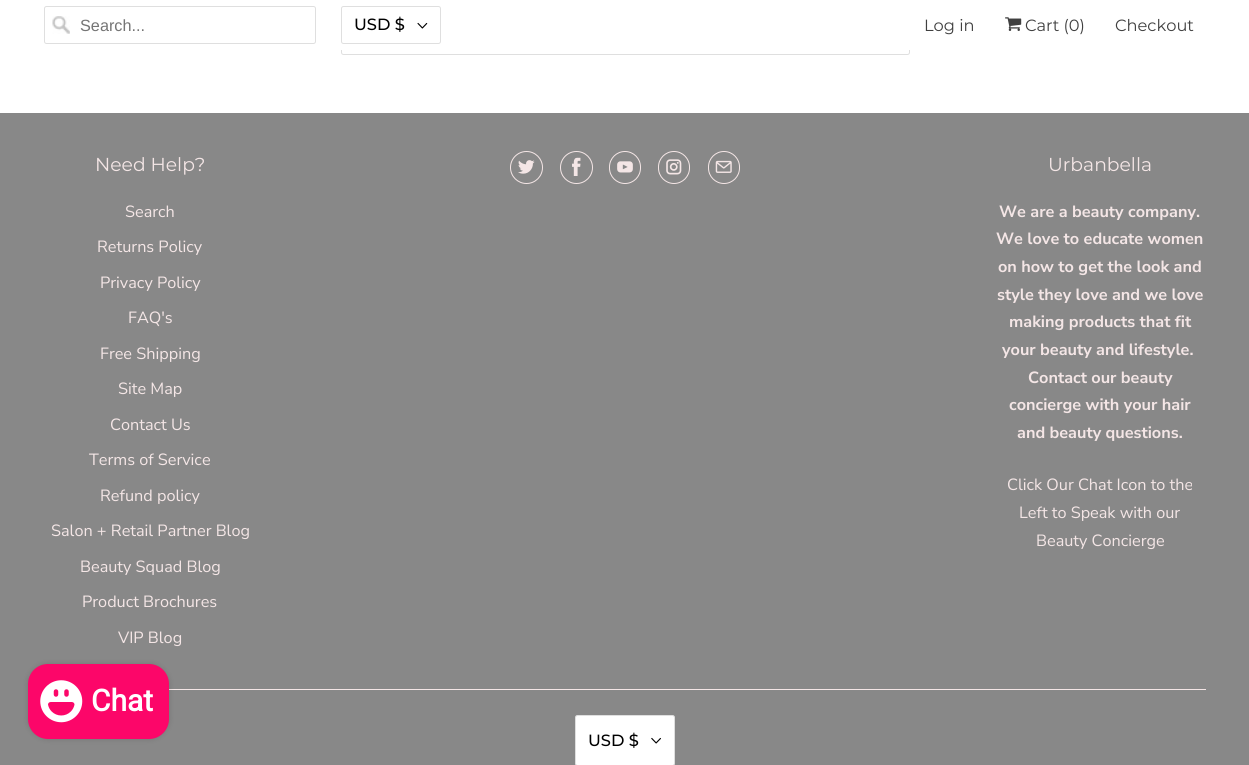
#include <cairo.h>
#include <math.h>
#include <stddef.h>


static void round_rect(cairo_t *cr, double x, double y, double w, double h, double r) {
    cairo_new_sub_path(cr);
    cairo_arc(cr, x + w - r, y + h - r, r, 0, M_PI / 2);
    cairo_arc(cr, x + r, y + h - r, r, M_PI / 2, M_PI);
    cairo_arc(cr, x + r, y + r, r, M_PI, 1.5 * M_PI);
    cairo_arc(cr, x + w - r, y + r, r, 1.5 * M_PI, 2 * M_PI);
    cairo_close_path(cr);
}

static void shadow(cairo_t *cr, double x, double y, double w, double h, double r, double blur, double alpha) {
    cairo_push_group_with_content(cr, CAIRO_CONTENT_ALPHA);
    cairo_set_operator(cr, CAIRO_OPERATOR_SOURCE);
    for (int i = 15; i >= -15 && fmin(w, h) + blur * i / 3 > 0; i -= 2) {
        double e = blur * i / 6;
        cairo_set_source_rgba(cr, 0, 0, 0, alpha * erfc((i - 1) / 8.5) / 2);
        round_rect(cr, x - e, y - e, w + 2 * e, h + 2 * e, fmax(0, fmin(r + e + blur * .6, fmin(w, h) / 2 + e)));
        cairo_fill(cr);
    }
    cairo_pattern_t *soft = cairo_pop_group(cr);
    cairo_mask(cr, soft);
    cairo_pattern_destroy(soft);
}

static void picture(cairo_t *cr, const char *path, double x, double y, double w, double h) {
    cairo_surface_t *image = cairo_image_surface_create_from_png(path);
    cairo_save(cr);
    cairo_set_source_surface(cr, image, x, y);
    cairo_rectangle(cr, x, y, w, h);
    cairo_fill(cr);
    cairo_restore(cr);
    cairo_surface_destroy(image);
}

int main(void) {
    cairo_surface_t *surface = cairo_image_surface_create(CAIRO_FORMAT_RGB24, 1249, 765);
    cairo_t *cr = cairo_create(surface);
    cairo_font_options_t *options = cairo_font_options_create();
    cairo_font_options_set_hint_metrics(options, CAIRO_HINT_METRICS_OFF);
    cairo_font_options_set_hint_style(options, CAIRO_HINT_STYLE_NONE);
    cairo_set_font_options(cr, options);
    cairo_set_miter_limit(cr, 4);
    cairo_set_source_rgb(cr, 1, 1, 1);
    cairo_paint(cr);
    round_rect(cr, 341.5, 18.5, 568, 36, 2);
    cairo_set_source_rgb(cr, 0.875, 0.875, 0.875);
    cairo_set_line_width(cr, 1);
    cairo_stroke(cr);
    cairo_set_source_rgb(cr, 1, 1, 1);
    cairo_rectangle(cr, 341, 18, 569, 32);
    cairo_fill(cr);
    picture(cr, "img1.png", 52, 16, 18, 18);
    round_rect(cr, 44.5, 6.5, 271, 37, 2);
    cairo_set_source_rgb(cr, 0.875, 0.875, 0.875);
    cairo_stroke(cr);
    cairo_select_font_face(cr, "Liberation Sans", CAIRO_FONT_SLANT_NORMAL, CAIRO_FONT_WEIGHT_NORMAL);
    cairo_set_font_size(cr, 16.25);
    cairo_set_source_rgb(cr, 0.459, 0.459, 0.459);
    cairo_move_to(cr, 80, 31);
    cairo_show_text(cr, "Search...");
    round_rect(cr, 341.5, 6.5, 99, 37, 2);
    cairo_set_source_rgb(cr, 0.875, 0.875, 0.875);
    cairo_stroke(cr);
    cairo_select_font_face(cr, "Montserrat Medium", CAIRO_FONT_SLANT_NORMAL, CAIRO_FONT_WEIGHT_NORMAL);
    cairo_set_source_rgb(cr, 0, 0, 0);
    cairo_move_to(cr, 354, 30);
    cairo_show_text(cr, "USD $");
    picture(cr, "img2.png", 417, 22, 11, 7);
    cairo_select_font_face(cr, "Montserrat", CAIRO_FONT_SLANT_NORMAL, CAIRO_FONT_WEIGHT_NORMAL);
    cairo_set_source_rgb(cr, 0.251, 0.251, 0.251);
    cairo_move_to(cr, 924, 31);
    cairo_show_text(cr, "Log in");
    picture(cr, "img3.png", 1005, 17, 17, 14);
    cairo_move_to(cr, 1025, 31);
    cairo_show_text(cr, "Cart (0)");
    cairo_move_to(cr, 1115, 31);
    cairo_show_text(cr, "Checkout");
    cairo_set_source_rgb(cr, 0.533, 0.533, 0.533);
    cairo_rectangle(cr, 0, 113, 1249, 652);
    cairo_fill(cr);
    cairo_set_font_size(cr, 18.75);
    cairo_set_source_rgb(cr, 0.957, 0.902, 0.902);
    cairo_move_to(cr, 95, 171);
    cairo_show_text(cr, "Need Help?");
    cairo_select_font_face(cr, "Nunito Sans", CAIRO_FONT_SLANT_NORMAL, CAIRO_FONT_WEIGHT_NORMAL);
    cairo_set_font_size(cr, 16.25);
    cairo_move_to(cr, 125, 217);
    cairo_show_text(cr, "Search");
    cairo_move_to(cr, 97, 252);
    cairo_show_text(cr, "Returns Policy");
    cairo_move_to(cr, 100, 288);
    cairo_show_text(cr, "Privacy Policy");
    cairo_move_to(cr, 128, 323);
    cairo_show_text(cr, "FAQ's");
    cairo_move_to(cr, 100, 359);
    cairo_show_text(cr, "Free Shipping");
    cairo_move_to(cr, 118, 394);
    cairo_show_text(cr, "Site Map");
    cairo_move_to(cr, 110, 430);
    cairo_show_text(cr, "Contact Us");
    cairo_move_to(cr, 89, 465);
    cairo_show_text(cr, "Terms of Service");
    cairo_move_to(cr, 100, 501);
    cairo_show_text(cr, "Refund policy");
    cairo_move_to(cr, 51, 536);
    cairo_show_text(cr, "Salon + Retail Partner Blog");
    cairo_move_to(cr, 80, 572);
    cairo_show_text(cr, "Beauty Squad Blog");
    cairo_move_to(cr, 82, 607);
    cairo_show_text(cr, "Product Brochures");
    cairo_move_to(cr, 118, 643);
    cairo_show_text(cr, "VIP Blog");
    cairo_new_path(cr);
    cairo_arc(cr, 526.5, 167.5, 16, 0, 2 * M_PI);
    cairo_stroke(cr);
    picture(cr, "img4.png", 518, 160, 17, 14);
    cairo_arc(cr, 576.5, 167.5, 16, 0, 2 * M_PI);
    cairo_stroke(cr);
    picture(cr, "img5.png", 572, 157, 9, 19);
    round_rect(cr, 609.5, 151.5, 31, 32, 15.5);
    cairo_stroke(cr);
    picture(cr, "img6.png", 617, 161, 16, 12);
    round_rect(cr, 658.5, 151.5, 31, 32, 15.5);
    cairo_stroke(cr);
    picture(cr, "img7.png", 666, 159, 16, 16);
    round_rect(cr, 708.5, 151.5, 31, 32, 15.5);
    cairo_stroke(cr);
    picture(cr, "img8.png", 715, 160, 17, 13);
    cairo_select_font_face(cr, "Montserrat", CAIRO_FONT_SLANT_NORMAL, CAIRO_FONT_WEIGHT_NORMAL);
    cairo_set_font_size(cr, 18.75);
    cairo_move_to(cr, 1048, 171);
    cairo_show_text(cr, "Urbanbella");
    cairo_select_font_face(cr, "Nunito Sans", CAIRO_FONT_SLANT_NORMAL, CAIRO_FONT_WEIGHT_BOLD);
    cairo_set_font_size(cr, 16.25);
    cairo_move_to(cr, 999, 217);
    cairo_show_text(cr, "We are a beauty company.");
    cairo_move_to(cr, 996, 244);
    cairo_show_text(cr, "We love to educate women");
    cairo_move_to(cr, 998, 272);
    cairo_show_text(cr, "on how to get the look and");
    cairo_move_to(cr, 997, 300);
    cairo_show_text(cr, "style they love and we love");
    cairo_move_to(cr, 1009, 327);
    cairo_show_text(cr, "making products that fit");
    cairo_move_to(cr, 1002, 355);
    cairo_show_text(cr, "your beauty and lifestyle.");
    cairo_move_to(cr, 1028, 383);
    cairo_show_text(cr, "Contact our beauty");
    cairo_move_to(cr, 1009, 410);
    cairo_show_text(cr, "concierge with your hair");
    cairo_move_to(cr, 1017, 438);
    cairo_show_text(cr, "and beauty questions.");
    cairo_select_font_face(cr, "Nunito Sans", CAIRO_FONT_SLANT_NORMAL, CAIRO_FONT_WEIGHT_NORMAL);
    cairo_move_to(cr, 1007, 490);
    cairo_show_text(cr, "Click Our Chat Icon to the");
    cairo_move_to(cr, 1019, 518);
    cairo_show_text(cr, "Left to Speak with our");
    cairo_move_to(cr, 1036, 546);
    cairo_show_text(cr, "Beauty Concierge");
    cairo_rectangle(cr, 169, 689, 1037, 1);
    cairo_fill(cr);
    cairo_set_source_rgb(cr, 1, 1, 1);
    round_rect(cr, 575.5, 715.5, 99, 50, 2);
    cairo_fill_preserve(cr);
    cairo_set_source_rgb(cr, 0.875, 0.875, 0.875);
    cairo_stroke(cr);
    cairo_select_font_face(cr, "Montserrat Medium", CAIRO_FONT_SLANT_NORMAL, CAIRO_FONT_WEIGHT_NORMAL);
    cairo_set_source_rgb(cr, 0, 0, 0);
    cairo_move_to(cr, 588, 746);
    cairo_show_text(cr, "USD $");
    picture(cr, "img9.png", 651, 737, 10, 7);
    cairo_set_source_rgb(cr, 0, 0, 0);
    shadow(cr, 28, 664, 141, 75, 20, 3, 0.15);
    cairo_set_source_rgb(cr, 0.988, 0.024, 0.412);
    round_rect(cr, 28, 664, 141, 75, 20);
    cairo_fill(cr);
    picture(cr, "img10.png", 40, 680, 43, 43);
    cairo_select_font_face(cr, "Roboto", CAIRO_FONT_SLANT_NORMAL, CAIRO_FONT_WEIGHT_BOLD);
    cairo_set_font_size(cr, 30);
    cairo_set_source_rgb(cr, 1, 1, 1);
    cairo_move_to(cr, 91, 711);
    cairo_show_text(cr, "Chat");
    cairo_surface_write_to_png(surface, "page.png");
    cairo_font_options_destroy(options);
    cairo_destroy(cr);
    cairo_surface_destroy(surface);
    return 0;
}
